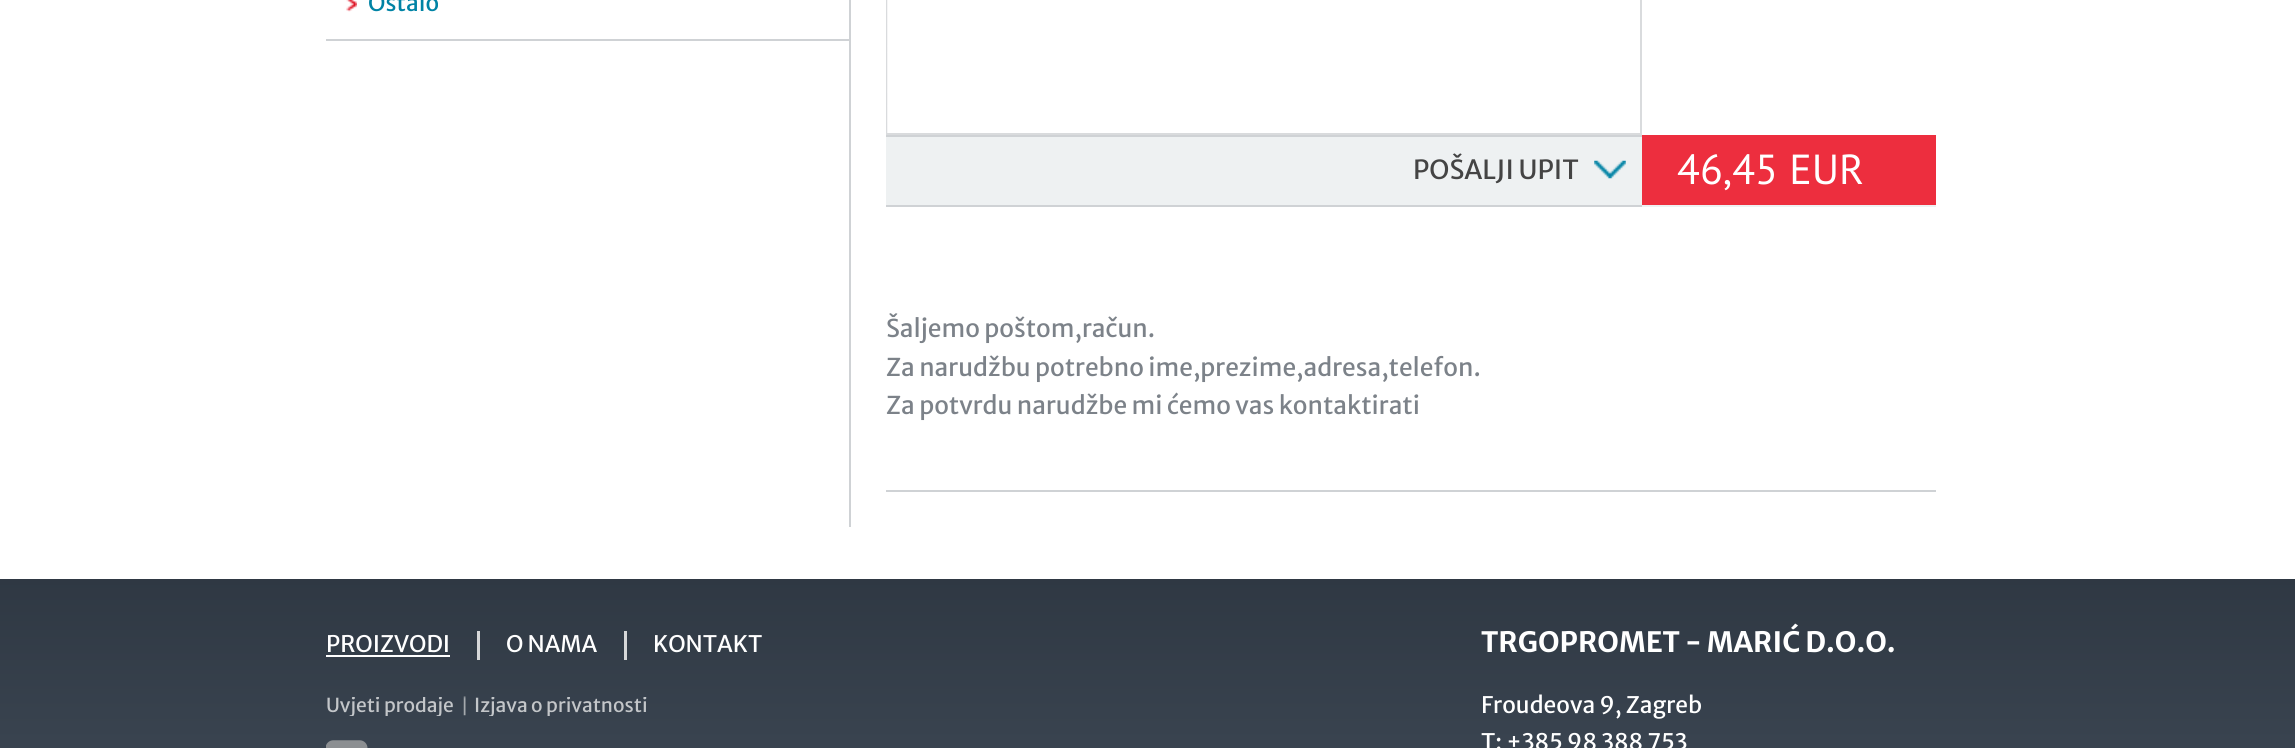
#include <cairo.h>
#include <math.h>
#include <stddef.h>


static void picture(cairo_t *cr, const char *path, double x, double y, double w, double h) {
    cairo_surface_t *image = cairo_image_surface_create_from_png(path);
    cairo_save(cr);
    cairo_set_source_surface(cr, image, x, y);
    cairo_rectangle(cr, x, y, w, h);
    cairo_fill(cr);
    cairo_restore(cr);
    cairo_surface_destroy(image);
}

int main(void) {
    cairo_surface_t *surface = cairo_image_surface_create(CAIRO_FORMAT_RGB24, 2295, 748);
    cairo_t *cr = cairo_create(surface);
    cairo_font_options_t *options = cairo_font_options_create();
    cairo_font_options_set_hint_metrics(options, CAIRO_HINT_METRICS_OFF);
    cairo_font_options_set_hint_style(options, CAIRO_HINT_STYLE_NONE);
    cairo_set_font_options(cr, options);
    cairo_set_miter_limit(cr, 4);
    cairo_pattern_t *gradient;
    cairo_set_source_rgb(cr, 1, 1, 1);
    cairo_paint(cr);
    picture(cr, "img1.png", 346, 0, 11, 12);
    cairo_set_source_rgb(cr, 0.812, 0.824, 0.835);
    cairo_rectangle(cr, 326, 39, 523, 2);
    cairo_fill(cr);
    cairo_select_font_face(cr, "Merriweather Sans", CAIRO_FONT_SLANT_NORMAL, CAIRO_FONT_WEIGHT_NORMAL);
    cairo_set_font_size(cr, 22.75);
    cairo_set_source_rgb(cr, 0, 0.514, 0.647);
    cairo_move_to(cr, 368, 11);
    cairo_show_text(cr, "Ostalo");
    cairo_set_source_rgb(cr, 0.812, 0.824, 0.835);
    cairo_rectangle(cr, 849, 0, 2, 527);
    cairo_fill(cr);
    cairo_set_source_rgb(cr, 0.851, 0.859, 0.867);
    cairo_rectangle(cr, 1640, 0, 2, 135);
    cairo_fill(cr);
    cairo_rectangle(cr, 886, 0, 2, 135);
    cairo_fill(cr);
    picture(cr, "img2.png", 887, 0, 1, 133);
    cairo_rectangle(cr, 887, 133, 753, 2);
    cairo_fill(cr);
    cairo_set_source_rgb(cr, 0.933, 0.945, 0.949);
    cairo_rectangle(cr, 886, 137, 1050, 70);
    cairo_fill(cr);
    cairo_set_source_rgb(cr, 0.812, 0.824, 0.835);
    cairo_rectangle(cr, 886, 135, 756, 2);
    cairo_fill(cr);
    cairo_rectangle(cr, 886, 205, 756, 2);
    cairo_fill(cr);
    cairo_set_font_size(cr, 26.25);
    cairo_set_source_rgb(cr, 0.267, 0.267, 0.267);
    cairo_move_to(cr, 1413, 179);
    cairo_show_text(cr, "POŠALJI UPIT");
    picture(cr, "img3.png", 1594, 160, 32, 19);
    cairo_set_source_rgb(cr, 0.929, 0.18, 0.243);
    cairo_rectangle(cr, 1642, 135, 294, 70);
    cairo_fill(cr);
    cairo_select_font_face(cr, "PT Sans", CAIRO_FONT_SLANT_NORMAL, CAIRO_FONT_WEIGHT_NORMAL);
    cairo_set_font_size(cr, 42);
    cairo_set_source_rgb(cr, 1, 1, 1);
    cairo_move_to(cr, 1677, 184);
    cairo_show_text(cr, "46,45 EUR");
    cairo_set_source_rgb(cr, 0.812, 0.824, 0.835);
    cairo_rectangle(cr, 886, 490, 1050, 2);
    cairo_fill(cr);
    cairo_select_font_face(cr, "Merriweather Sans", CAIRO_FONT_SLANT_NORMAL, CAIRO_FONT_WEIGHT_NORMAL);
    cairo_set_font_size(cr, 24.5);
    cairo_set_source_rgb(cr, 0.486, 0.51, 0.537);
    cairo_move_to(cr, 886, 337);
    cairo_show_text(cr, "Šaljemo poštom,račun.");
    cairo_move_to(cr, 886, 376);
    cairo_show_text(cr, "Za narudžbu potrebno ime,prezime,adresa,telefon.");
    cairo_move_to(cr, 886, 414);
    cairo_show_text(cr, "Za potvrdu narudžbe mi ćemo vas kontaktirati");
    gradient = cairo_pattern_create_linear(1148, 579, 1148, 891);
    cairo_pattern_add_color_stop_rgba(gradient, 0, 0.184, 0.22, 0.263, 1);
    cairo_pattern_add_color_stop_rgba(gradient, 1, 0.259, 0.302, 0.353, 1);
    cairo_set_source(cr, gradient);
    cairo_pattern_destroy(gradient);
    cairo_rectangle(cr, 0, 579, 2295, 169);
    cairo_fill(cr);
    cairo_set_source_rgb(cr, 0.839, 0.843, 0.847);
    cairo_rectangle(cr, 477, 631, 3, 29);
    cairo_fill(cr);
    cairo_set_font_size(cr, 22.75);
    cairo_set_source_rgb(cr, 1, 1, 1);
    cairo_move_to(cr, 326, 652);
    cairo_show_text(cr, "PROIZVODI");
    cairo_rectangle(cr, 326, 655, 124, 2);
    cairo_fill(cr);
    cairo_set_source_rgb(cr, 0.839, 0.843, 0.847);
    cairo_rectangle(cr, 624, 631, 3, 29);
    cairo_fill(cr);
    cairo_set_source_rgb(cr, 1, 1, 1);
    cairo_move_to(cr, 506, 652);
    cairo_show_text(cr, "O NAMA");
    cairo_move_to(cr, 653, 652);
    cairo_show_text(cr, "KONTAKT");
    picture(cr, "img4.png", 463, 696, 3, 20);
    cairo_save(cr);
    cairo_rectangle(cr, 326, 697, 343, 19);
    cairo_clip(cr);
    cairo_set_font_size(cr, 19.25);
    cairo_set_source_rgb(cr, 0.765, 0.776, 0.788);
    cairo_move_to(cr, 326, 712);
    cairo_show_text(cr, "Uvjeti prodaje");
    cairo_move_to(cr, 474, 712);
    cairo_show_text(cr, "Izjava o privatnosti");
    cairo_restore(cr);
    picture(cr, "img5.png", 326, 740, 42, 8);
    cairo_select_font_face(cr, "Merriweather Sans", CAIRO_FONT_SLANT_NORMAL, CAIRO_FONT_WEIGHT_BOLD);
    cairo_set_font_size(cr, 28);
    cairo_move_to(cr, 1481, 652);
    cairo_show_text(cr, "TRGOPROMET - MARIĆ D.O.O.");
    cairo_select_font_face(cr, "Merriweather Sans", CAIRO_FONT_SLANT_NORMAL, CAIRO_FONT_WEIGHT_NORMAL);
    cairo_set_font_size(cr, 22.75);
    cairo_move_to(cr, 1481, 713);
    cairo_show_text(cr, "Froudeova 9, Zagreb");
    cairo_move_to(cr, 1481, 750);
    cairo_show_text(cr, "T: +385 98 388 753");
    cairo_surface_write_to_png(surface, "page.png");
    cairo_font_options_destroy(options);
    cairo_destroy(cr);
    cairo_surface_destroy(surface);
    return 0;
}
